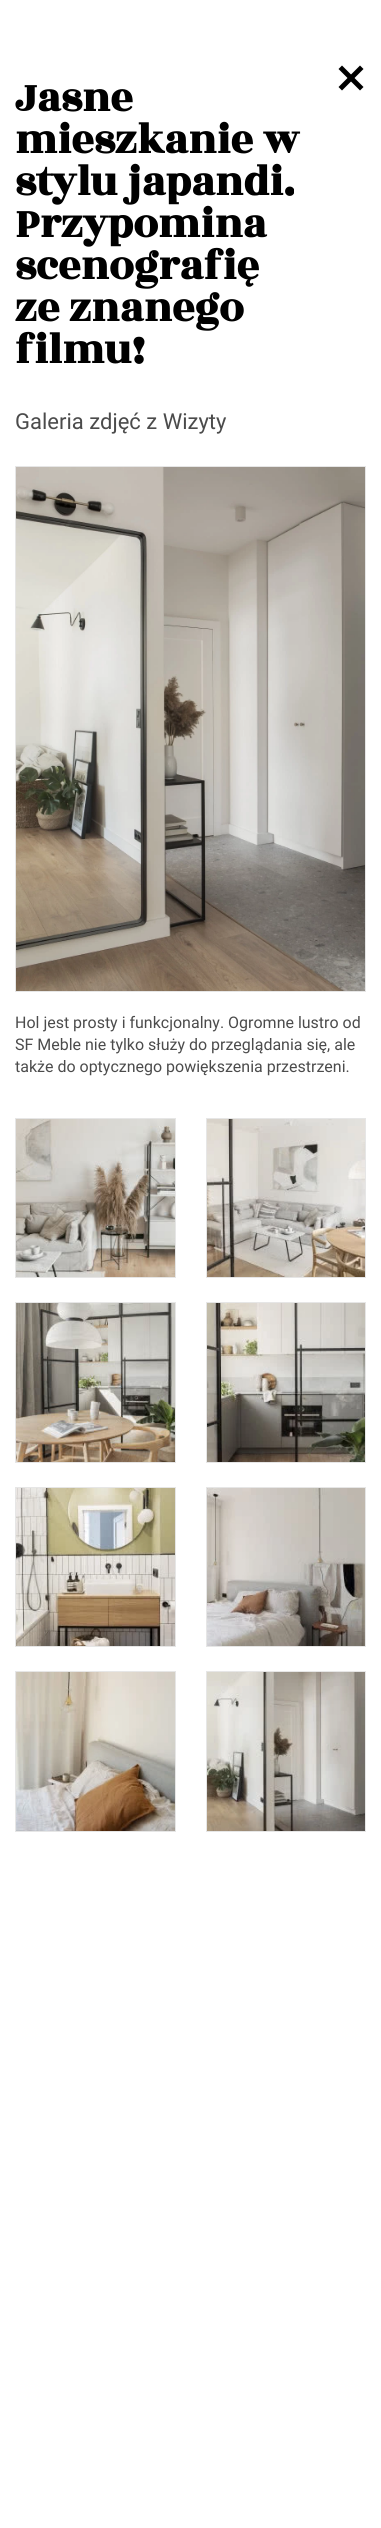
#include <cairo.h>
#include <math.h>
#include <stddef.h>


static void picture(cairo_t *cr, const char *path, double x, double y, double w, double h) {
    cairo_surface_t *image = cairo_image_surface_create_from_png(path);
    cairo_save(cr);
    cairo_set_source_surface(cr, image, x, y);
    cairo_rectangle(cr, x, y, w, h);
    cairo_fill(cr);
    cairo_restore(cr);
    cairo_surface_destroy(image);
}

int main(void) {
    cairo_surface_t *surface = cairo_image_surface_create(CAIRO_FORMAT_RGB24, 381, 2528);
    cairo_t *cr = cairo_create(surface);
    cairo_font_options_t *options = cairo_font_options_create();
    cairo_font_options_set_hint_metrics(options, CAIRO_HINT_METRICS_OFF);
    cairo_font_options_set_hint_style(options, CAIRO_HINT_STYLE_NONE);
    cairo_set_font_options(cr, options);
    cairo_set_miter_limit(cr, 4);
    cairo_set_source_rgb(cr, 1, 1, 1);
    cairo_paint(cr);
    cairo_set_source_rgb(cr, 0, 0, 0);
    cairo_new_path(cr);
    cairo_move_to(cr, 342, 65.5);
    cairo_line_to(cr, 363.5, 87);
    cairo_line_to(cr, 360, 90.5);
    cairo_line_to(cr, 338.5, 69);
    cairo_close_path(cr);
    cairo_fill(cr);
    cairo_new_path(cr);
    cairo_move_to(cr, 338.5, 87);
    cairo_line_to(cr, 360, 65.5);
    cairo_line_to(cr, 363.5, 69);
    cairo_line_to(cr, 342, 90.5);
    cairo_close_path(cr);
    cairo_fill(cr);
    cairo_select_font_face(cr, "Rozha One", CAIRO_FONT_SLANT_NORMAL, CAIRO_FONT_WEIGHT_BOLD);
    cairo_set_font_size(cr, 44);
    cairo_move_to(cr, 15, 111);
    cairo_show_text(cr, "Jasne");
    cairo_move_to(cr, 15, 153);
    cairo_show_text(cr, "mieszkanie w");
    cairo_move_to(cr, 15, 195);
    cairo_show_text(cr, "stylu japandi.");
    cairo_move_to(cr, 15, 237);
    cairo_show_text(cr, "Przypomina");
    cairo_move_to(cr, 15, 279);
    cairo_show_text(cr, "scenografię");
    cairo_move_to(cr, 15, 321);
    cairo_show_text(cr, "ze znanego");
    cairo_move_to(cr, 15, 363);
    cairo_show_text(cr, "filmu!");
    cairo_select_font_face(cr, "Roboto", CAIRO_FONT_SLANT_NORMAL, CAIRO_FONT_WEIGHT_NORMAL);
    cairo_set_font_size(cr, 22);
    cairo_set_source_rgb(cr, 0.294, 0.294, 0.294);
    cairo_move_to(cr, 15, 429);
    cairo_show_text(cr, "Galeria zdjęć z Wizyty");
    cairo_rectangle(cr, 15.5, 466.5, 350, 525);
    cairo_set_source_rgb(cr, 0.902, 0.902, 0.902);
    cairo_set_line_width(cr, 1);
    cairo_stroke(cr);
    picture(cr, "img1.png", 16, 467, 349, 524);
    cairo_set_font_size(cr, 16);
    cairo_set_source_rgb(cr, 0.294, 0.294, 0.294);
    cairo_move_to(cr, 15, 1028);
    cairo_show_text(cr, "Hol jest prosty i funkcjonalny. Ogromne lustro od");
    cairo_move_to(cr, 15, 1050);
    cairo_show_text(cr, "SF Meble nie tylko służy do przeglądania się, ale");
    cairo_move_to(cr, 15, 1072);
    cairo_show_text(cr, "także do optycznego powiększenia przestrzeni.");
    cairo_rectangle(cr, 15.5, 1118.5, 160, 159);
    cairo_set_source_rgb(cr, 0.902, 0.902, 0.902);
    cairo_stroke(cr);
    picture(cr, "img2.png", 16, 1119, 159, 158);
    cairo_rectangle(cr, 206.5, 1118.5, 159, 159);
    cairo_stroke(cr);
    picture(cr, "img3.png", 207, 1119, 158, 158);
    cairo_rectangle(cr, 15.5, 1302.5, 160, 160);
    cairo_stroke(cr);
    picture(cr, "img4.png", 16, 1303, 159, 159);
    cairo_rectangle(cr, 206.5, 1302.5, 159, 160);
    cairo_stroke(cr);
    picture(cr, "img5.png", 207, 1303, 158, 159);
    cairo_rectangle(cr, 15.5, 1487.5, 160, 159);
    cairo_stroke(cr);
    picture(cr, "img6.png", 16, 1488, 159, 158);
    cairo_rectangle(cr, 206.5, 1487.5, 159, 159);
    cairo_stroke(cr);
    picture(cr, "img7.png", 207, 1488, 158, 158);
    cairo_rectangle(cr, 15.5, 1671.5, 160, 160);
    cairo_stroke(cr);
    picture(cr, "img8.png", 16, 1672, 159, 159);
    cairo_rectangle(cr, 206.5, 1671.5, 159, 160);
    cairo_stroke(cr);
    picture(cr, "img9.png", 207, 1672, 158, 159);
    cairo_surface_write_to_png(surface, "page.png");
    cairo_font_options_destroy(options);
    cairo_destroy(cr);
    cairo_surface_destroy(surface);
    return 0;
}
